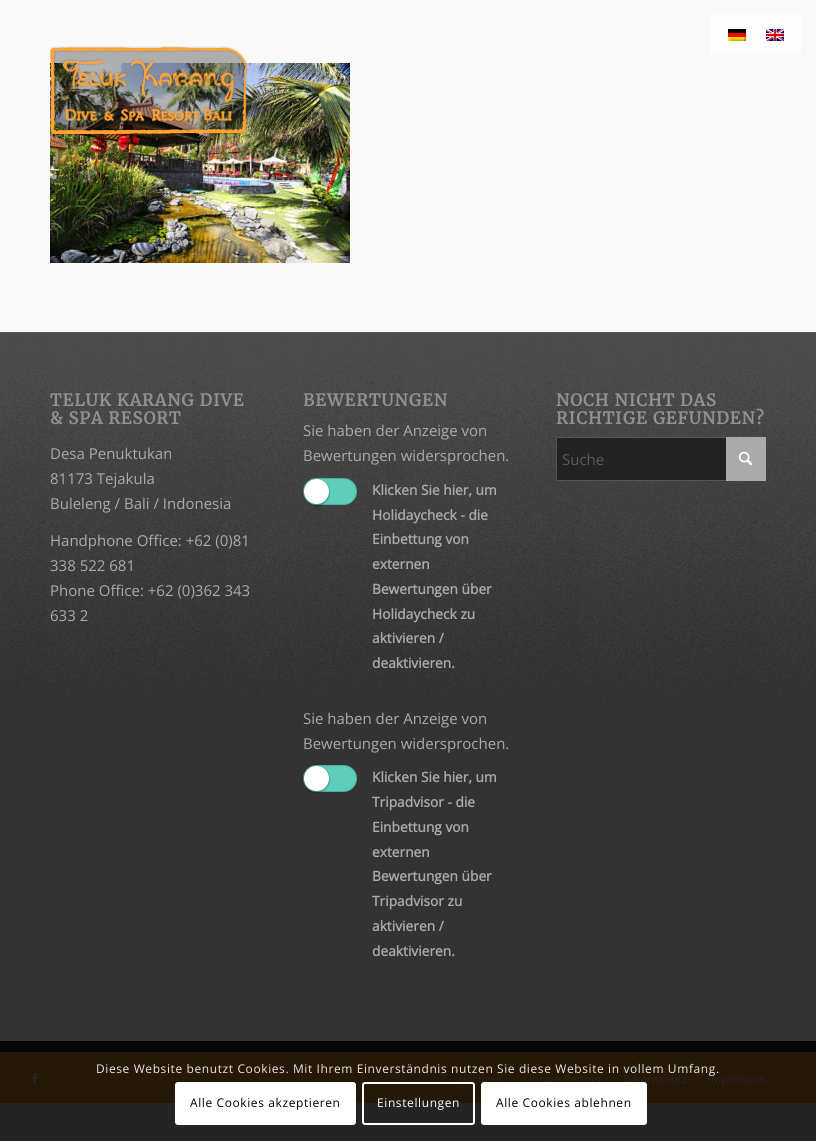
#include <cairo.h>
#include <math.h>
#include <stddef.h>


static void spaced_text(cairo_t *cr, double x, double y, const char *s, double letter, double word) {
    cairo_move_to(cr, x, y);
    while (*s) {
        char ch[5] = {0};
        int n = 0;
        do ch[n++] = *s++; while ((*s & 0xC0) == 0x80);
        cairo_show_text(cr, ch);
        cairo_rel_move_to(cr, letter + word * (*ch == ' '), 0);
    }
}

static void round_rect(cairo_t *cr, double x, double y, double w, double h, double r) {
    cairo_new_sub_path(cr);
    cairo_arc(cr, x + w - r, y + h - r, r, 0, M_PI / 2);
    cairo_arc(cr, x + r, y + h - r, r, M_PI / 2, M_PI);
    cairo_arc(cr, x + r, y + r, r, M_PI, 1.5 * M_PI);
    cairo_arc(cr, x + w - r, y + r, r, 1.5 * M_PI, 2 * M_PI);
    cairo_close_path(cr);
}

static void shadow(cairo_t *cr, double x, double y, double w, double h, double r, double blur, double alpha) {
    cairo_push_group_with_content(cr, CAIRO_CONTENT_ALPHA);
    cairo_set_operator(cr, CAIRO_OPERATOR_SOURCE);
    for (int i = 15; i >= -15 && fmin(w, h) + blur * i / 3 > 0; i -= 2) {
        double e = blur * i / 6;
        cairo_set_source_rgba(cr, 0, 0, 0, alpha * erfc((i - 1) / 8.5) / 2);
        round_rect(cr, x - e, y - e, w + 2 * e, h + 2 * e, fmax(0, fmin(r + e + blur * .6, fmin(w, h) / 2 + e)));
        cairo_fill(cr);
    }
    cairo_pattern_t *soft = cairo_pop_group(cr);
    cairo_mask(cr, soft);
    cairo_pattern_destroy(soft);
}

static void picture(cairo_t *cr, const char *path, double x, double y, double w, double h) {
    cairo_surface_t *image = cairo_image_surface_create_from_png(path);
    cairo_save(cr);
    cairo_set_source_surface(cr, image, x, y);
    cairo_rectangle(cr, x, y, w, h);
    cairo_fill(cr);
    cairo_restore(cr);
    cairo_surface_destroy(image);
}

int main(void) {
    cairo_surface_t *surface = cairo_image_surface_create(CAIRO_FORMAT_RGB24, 816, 1141);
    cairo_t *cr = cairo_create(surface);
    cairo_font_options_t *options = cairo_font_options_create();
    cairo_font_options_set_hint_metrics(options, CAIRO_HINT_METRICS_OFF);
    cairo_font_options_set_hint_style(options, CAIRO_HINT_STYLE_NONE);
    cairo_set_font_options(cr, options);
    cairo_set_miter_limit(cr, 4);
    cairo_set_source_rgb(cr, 0.141, 0.141, 0.141);
    cairo_paint(cr);
    cairo_set_source_rgb(cr, 0.973, 0.973, 0.973);
    cairo_rectangle(cr, 0, 0, 816, 332);
    cairo_fill(cr);
    cairo_set_source_rgb(cr, 0.992, 0.992, 0.992);
    cairo_new_path(cr);
    cairo_move_to(cr, 710, 15);
    cairo_line_to(cr, 801, 15);
    cairo_line_to(cr, 801, 55);
    cairo_line_to(cr, 714, 55);
    cairo_curve_to(cr, 712, 55, 710, 53, 710, 51);
    cairo_close_path(cr);
    cairo_fill(cr);
    picture(cr, "img1.png", 728, 29, 18, 12);
    picture(cr, "img2.png", 766, 29, 18, 12);
    picture(cr, "img4.png", 50, 63, 300, 200);
    picture(cr, "img3.png", 50, 46, 197, 89);
    cairo_set_source_rgb(cr, 0.2, 0.2, 0.2);
    cairo_rectangle(cr, 0, 333, 816, 708);
    cairo_fill(cr);
    cairo_set_source_rgb(cr, 0.031, 0.031, 0.031);
    cairo_rectangle(cr, 0, 1041, 816, 11);
    cairo_fill(cr);
    picture(cr, "img5.png", 0, 333, 816, 376);
    cairo_set_source_rgb(cr, 0.333, 0.333, 0.333);
    cairo_rectangle(cr, 0, 332, 816, 1);
    cairo_fill(cr);
    cairo_select_font_face(cr, "Merriweather", CAIRO_FONT_SLANT_NORMAL, CAIRO_FONT_WEIGHT_BOLD);
    cairo_set_font_size(cr, 16.5);
    cairo_set_source_rgb(cr, 0.569, 0.569, 0.569);
    spaced_text(cr, 50, 406, "TELUK KARANG DIVE", 1, 0);
    spaced_text(cr, 50, 424, "& SPA RESORT", 1, 0);
    cairo_select_font_face(cr, "Open Sans", CAIRO_FONT_SLANT_NORMAL, CAIRO_FONT_WEIGHT_NORMAL);
    cairo_set_font_size(cr, 15);
    cairo_set_source_rgb(cr, 0.667, 0.667, 0.667);
    cairo_move_to(cr, 50, 459);
    cairo_show_text(cr, "Desa Penuktukan");
    cairo_move_to(cr, 50, 484);
    cairo_show_text(cr, "81173 Tejakula");
    cairo_move_to(cr, 50, 509);
    cairo_show_text(cr, "Buleleng / Bali / Indonesia");
    cairo_move_to(cr, 50, 546);
    cairo_show_text(cr, "Handphone Office: +62 (0)81");
    cairo_move_to(cr, 50, 571);
    cairo_show_text(cr, "338 522 681");
    cairo_move_to(cr, 50, 596);
    cairo_show_text(cr, "Phone Office: +62 (0)362 343");
    cairo_move_to(cr, 50, 621);
    cairo_show_text(cr, "633 2");
    cairo_select_font_face(cr, "Merriweather", CAIRO_FONT_SLANT_NORMAL, CAIRO_FONT_WEIGHT_BOLD);
    cairo_set_font_size(cr, 16.5);
    cairo_set_source_rgb(cr, 0.569, 0.569, 0.569);
    spaced_text(cr, 303, 406, "BEWERTUNGEN", 1, 0);
    cairo_select_font_face(cr, "Open Sans", CAIRO_FONT_SLANT_NORMAL, CAIRO_FONT_WEIGHT_NORMAL);
    cairo_set_font_size(cr, 15);
    cairo_set_source_rgb(cr, 0.667, 0.667, 0.667);
    cairo_move_to(cr, 303, 436);
    cairo_show_text(cr, "Sie haben der Anzeige von");
    cairo_move_to(cr, 303, 461);
    cairo_show_text(cr, "Bewertungen widersprochen.");
    cairo_set_source_rgb(cr, 0.365, 0.808, 0.729);
    round_rect(cr, 303, 478, 54, 27, 13.5);
    cairo_fill(cr);
    round_rect(cr, 303.5, 478.5, 53, 26, 13);
    cairo_set_source_rgba(cr, 0, 0, 0, 0.15);
    cairo_set_line_width(cr, 1);
    cairo_stroke(cr);
    cairo_set_source_rgb(cr, 0, 0, 0);
    shadow(cr, 303, 479, 27, 27, 13.5, 0.5, 0.2);
    cairo_set_source_rgb(cr, 1, 1, 1);
    cairo_arc(cr, 316.5, 491.5, 12.5, 0, 2 * M_PI);
    cairo_fill(cr);
    cairo_select_font_face(cr, "Open Sans", CAIRO_FONT_SLANT_NORMAL, CAIRO_FONT_WEIGHT_BOLD);
    cairo_set_font_size(cr, 13.75);
    cairo_set_source_rgb(cr, 0.667, 0.667, 0.667);
    cairo_move_to(cr, 372, 495);
    cairo_show_text(cr, "Klicken Sie hier, um");
    cairo_move_to(cr, 372, 520);
    cairo_show_text(cr, "Holidaycheck - die");
    cairo_move_to(cr, 372, 544);
    cairo_show_text(cr, "Einbettung von");
    cairo_move_to(cr, 372, 569);
    cairo_show_text(cr, "externen");
    cairo_move_to(cr, 372, 594);
    cairo_show_text(cr, "Bewertungen über");
    cairo_move_to(cr, 372, 619);
    cairo_show_text(cr, "Holidaycheck zu");
    cairo_move_to(cr, 372, 643);
    cairo_show_text(cr, "aktivieren /");
    cairo_move_to(cr, 372, 668);
    cairo_show_text(cr, "deaktivieren.");
    cairo_select_font_face(cr, "Open Sans", CAIRO_FONT_SLANT_NORMAL, CAIRO_FONT_WEIGHT_NORMAL);
    cairo_set_font_size(cr, 15);
    cairo_move_to(cr, 303, 724);
    cairo_show_text(cr, "Sie haben der Anzeige von");
    cairo_move_to(cr, 303, 749);
    cairo_show_text(cr, "Bewertungen widersprochen.");
    cairo_set_source_rgb(cr, 0.365, 0.808, 0.729);
    round_rect(cr, 303, 765, 54, 27, 13.5);
    cairo_fill(cr);
    round_rect(cr, 303.5, 765.5, 53, 26, 13);
    cairo_set_source_rgba(cr, 0, 0, 0, 0.15);
    cairo_stroke(cr);
    cairo_set_source_rgb(cr, 0, 0, 0);
    shadow(cr, 303, 766, 27, 27, 13.5, 0.5, 0.2);
    cairo_set_source_rgb(cr, 1, 1, 1);
    cairo_arc(cr, 316.5, 778.5, 12.5, 0, 2 * M_PI);
    cairo_fill(cr);
    cairo_select_font_face(cr, "Open Sans", CAIRO_FONT_SLANT_NORMAL, CAIRO_FONT_WEIGHT_BOLD);
    cairo_set_font_size(cr, 13.75);
    cairo_set_source_rgb(cr, 0.667, 0.667, 0.667);
    cairo_move_to(cr, 372, 782);
    cairo_show_text(cr, "Klicken Sie hier, um");
    cairo_move_to(cr, 372, 807);
    cairo_show_text(cr, "Tripadvisor - die");
    cairo_move_to(cr, 372, 832);
    cairo_show_text(cr, "Einbettung von");
    cairo_move_to(cr, 372, 857);
    cairo_show_text(cr, "externen");
    cairo_move_to(cr, 372, 881);
    cairo_show_text(cr, "Bewertungen über");
    cairo_move_to(cr, 372, 906);
    cairo_show_text(cr, "Tripadvisor zu");
    cairo_move_to(cr, 372, 931);
    cairo_show_text(cr, "aktivieren /");
    cairo_move_to(cr, 372, 956);
    cairo_show_text(cr, "deaktivieren.");
    cairo_select_font_face(cr, "Merriweather", CAIRO_FONT_SLANT_NORMAL, CAIRO_FONT_WEIGHT_BOLD);
    cairo_set_font_size(cr, 16.5);
    cairo_set_source_rgb(cr, 0.569, 0.569, 0.569);
    spaced_text(cr, 556, 406, "NOCH NICHT DAS", 1, 0);
    spaced_text(cr, 556, 424, "RICHTIGE GEFUNDEN?", 1, 0);
    cairo_set_source_rgb(cr, 0.133, 0.133, 0.133);
    cairo_rectangle(cr, 557, 438, 169, 42);
    cairo_fill(cr);
    cairo_rectangle(cr, 556.5, 437.5, 209, 43);
    cairo_set_source_rgb(cr, 0.333, 0.333, 0.333);
    cairo_stroke(cr);
    cairo_set_source_rgb(cr, 0.667, 0.667, 0.667);
    cairo_rectangle(cr, 726, 437, 40, 44);
    cairo_fill(cr);
    cairo_select_font_face(cr, "Open Sans", CAIRO_FONT_SLANT_NORMAL, CAIRO_FONT_WEIGHT_NORMAL);
    cairo_set_font_size(cr, 15);
    cairo_set_source_rgb(cr, 0.353, 0.353, 0.353);
    cairo_move_to(cr, 562, 465);
    cairo_show_text(cr, "Suche");
    picture(cr, "img6.png", 738, 451, 15, 15);
    cairo_set_source_rgb(cr, 0.149, 0.094, 0.031);
    cairo_rectangle(cr, 0, 1052, 816, 51);
    cairo_fill(cr);
    picture(cr, "img7.png", 32, 1073, 6, 11);
    cairo_set_font_size(cr, 11);
    cairo_set_source_rgb(cr, 0.149, 0.149, 0.149);
    cairo_move_to(cr, 458, 1083);
    cairo_show_text(cr, "Hochzeit");
    cairo_move_to(cr, 524, 1083);
    cairo_show_text(cr, "Unsere Partner");
    cairo_move_to(cr, 623, 1083);
    cairo_show_text(cr, "Datenschutz");
    cairo_move_to(cr, 708, 1083);
    cairo_show_text(cr, "Impressum");
    cairo_set_font_size(cr, 12);
    cairo_set_source_rgb(cr, 0.914, 0.91, 0.902);
    spaced_text(cr, 96, 1073, "Diese Website benutzt Cookies. Mit Ihrem Einverständnis nutzen Sie diese Website in vollem Umfang.", 0.6, 0);
    cairo_set_source_rgb(cr, 1, 1, 1);
    round_rect(cr, 175, 1082, 181, 43, 3);
    cairo_fill(cr);
    cairo_set_source_rgb(cr, 0, 0, 0);
    spaced_text(cr, 190, 1107, "Alle Cookies akzeptieren", 0.6, 0);
    round_rect(cr, 363, 1083, 111, 41, 2);
    cairo_set_source_rgb(cr, 1, 1, 1);
    cairo_set_line_width(cr, 2);
    cairo_stroke(cr);
    spaced_text(cr, 377, 1107, "Einstellungen", 0.6, 0);
    round_rect(cr, 482, 1083, 164, 41, 2);
    cairo_fill_preserve(cr);
    cairo_stroke(cr);
    cairo_set_source_rgb(cr, 0, 0, 0);
    spaced_text(cr, 496, 1107, "Alle Cookies ablehnen", 0.6, 0);
    cairo_surface_write_to_png(surface, "page.png");
    cairo_font_options_destroy(options);
    cairo_destroy(cr);
    cairo_surface_destroy(surface);
    return 0;
}
